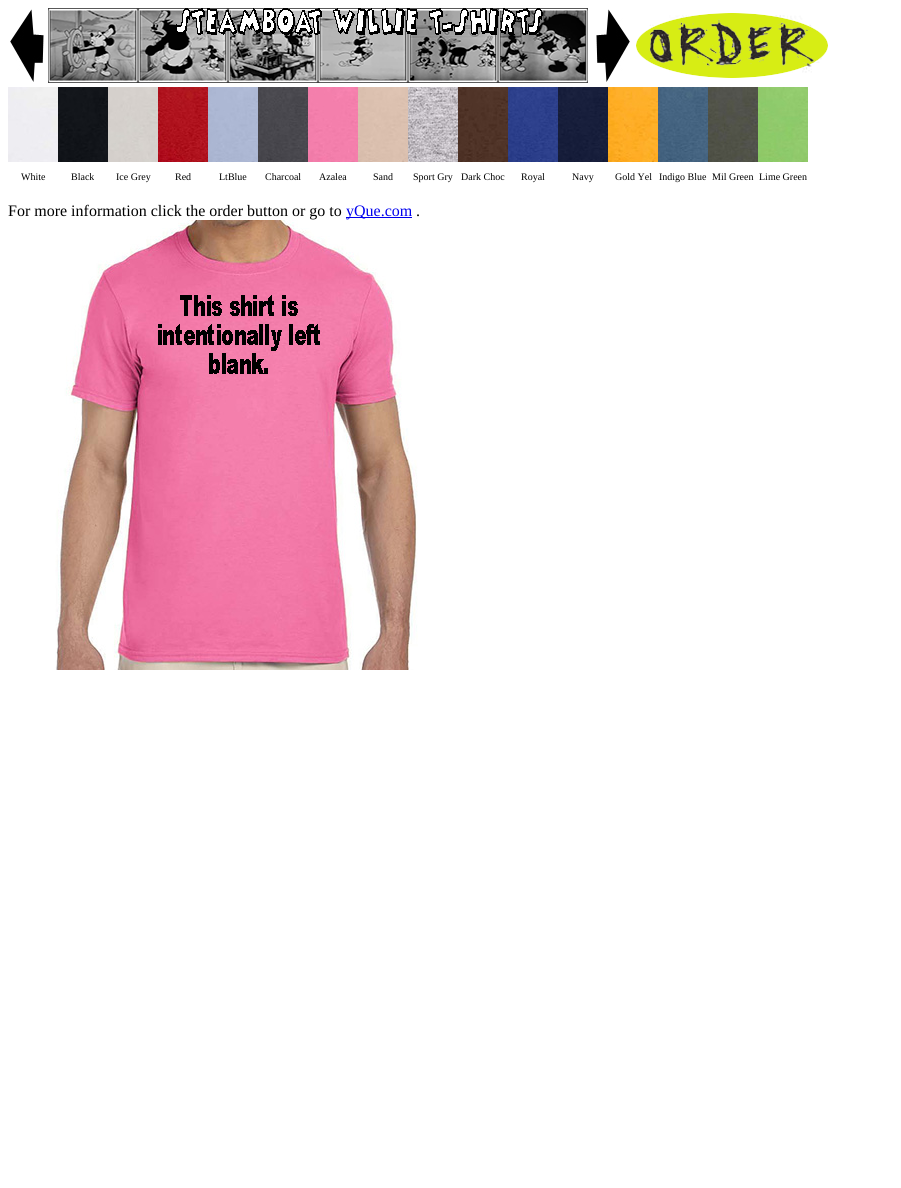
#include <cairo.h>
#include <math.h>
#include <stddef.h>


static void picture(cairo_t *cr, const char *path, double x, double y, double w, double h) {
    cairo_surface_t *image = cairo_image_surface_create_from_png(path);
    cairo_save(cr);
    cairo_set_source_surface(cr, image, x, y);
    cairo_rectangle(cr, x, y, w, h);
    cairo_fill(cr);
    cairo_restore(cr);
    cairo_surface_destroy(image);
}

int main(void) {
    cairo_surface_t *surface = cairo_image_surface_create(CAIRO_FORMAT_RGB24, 901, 1188);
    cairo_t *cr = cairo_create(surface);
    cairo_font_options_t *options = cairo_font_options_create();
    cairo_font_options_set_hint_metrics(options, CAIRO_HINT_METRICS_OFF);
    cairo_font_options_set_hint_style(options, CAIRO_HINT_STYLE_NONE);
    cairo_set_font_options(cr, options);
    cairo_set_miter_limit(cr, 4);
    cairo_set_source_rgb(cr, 1, 1, 1);
    cairo_paint(cr);
    picture(cr, "img1.png", 10, 9, 34, 73);
    picture(cr, "img2.png", 48, 8, 540, 75);
    picture(cr, "img3.png", 596, 9, 34, 73);
    picture(cr, "img4.png", 636, 13, 192, 65);
    picture(cr, "img5.png", 8, 87, 50, 75);
    picture(cr, "img6.png", 58, 87, 50, 75);
    picture(cr, "img7.png", 108, 87, 50, 75);
    picture(cr, "img8.png", 158, 87, 50, 75);
    picture(cr, "img9.png", 208, 87, 50, 75);
    picture(cr, "img10.png", 258, 87, 50, 75);
    picture(cr, "img11.png", 308, 87, 50, 75);
    picture(cr, "img12.png", 358, 87, 50, 75);
    picture(cr, "img13.png", 408, 87, 50, 75);
    picture(cr, "img14.png", 458, 87, 50, 75);
    picture(cr, "img15.png", 508, 87, 50, 75);
    picture(cr, "img16.png", 558, 87, 50, 75);
    picture(cr, "img17.png", 608, 87, 50, 75);
    picture(cr, "img18.png", 658, 87, 50, 75);
    picture(cr, "img19.png", 708, 87, 50, 75);
    picture(cr, "img20.png", 758, 87, 50, 75);
    cairo_select_font_face(cr, "Liberation Serif", CAIRO_FONT_SLANT_NORMAL, CAIRO_FONT_WEIGHT_NORMAL);
    cairo_set_font_size(cr, 10);
    cairo_set_source_rgb(cr, 0, 0, 0);
    cairo_move_to(cr, 21, 180);
    cairo_show_text(cr, "White");
    cairo_move_to(cr, 71, 180);
    cairo_show_text(cr, "Black");
    cairo_move_to(cr, 116, 180);
    cairo_show_text(cr, "Ice Grey");
    cairo_move_to(cr, 175, 180);
    cairo_show_text(cr, "Red");
    cairo_move_to(cr, 219, 180);
    cairo_show_text(cr, "LtBlue");
    cairo_move_to(cr, 265, 180);
    cairo_show_text(cr, "Charcoal");
    cairo_move_to(cr, 319, 180);
    cairo_show_text(cr, "Azalea");
    cairo_move_to(cr, 373, 180);
    cairo_show_text(cr, "Sand");
    cairo_move_to(cr, 413, 180);
    cairo_show_text(cr, "Sport Gry");
    cairo_move_to(cr, 461, 180);
    cairo_show_text(cr, "Dark Choc");
    cairo_move_to(cr, 521, 180);
    cairo_show_text(cr, "Royal");
    cairo_move_to(cr, 572, 180);
    cairo_show_text(cr, "Navy");
    cairo_move_to(cr, 615, 180);
    cairo_show_text(cr, "Gold Yel");
    cairo_move_to(cr, 659, 180);
    cairo_show_text(cr, "Indigo Blue");
    cairo_move_to(cr, 712, 180);
    cairo_show_text(cr, "Mil Green");
    cairo_move_to(cr, 759, 180);
    cairo_show_text(cr, "Lime Green");
    cairo_set_font_size(cr, 16);
    cairo_move_to(cr, 8, 216);
    cairo_show_text(cr, "For more information click the order button or go to");
    cairo_set_source_rgb(cr, 0, 0, 0.933);
    cairo_rectangle(cr, 346, 217, 66, 1);
    cairo_fill(cr);
    cairo_move_to(cr, 346, 216);
    cairo_show_text(cr, "yQue.com");
    cairo_set_source_rgb(cr, 0, 0, 0);
    cairo_move_to(cr, 416, 216);
    cairo_show_text(cr, ".");
    picture(cr, "img21.png", 55, 220, 363, 450);
    picture(cr, "img22.png", 158, 295, 162, 79);
    cairo_surface_write_to_png(surface, "page.png");
    cairo_font_options_destroy(options);
    cairo_destroy(cr);
    cairo_surface_destroy(surface);
    return 0;
}
